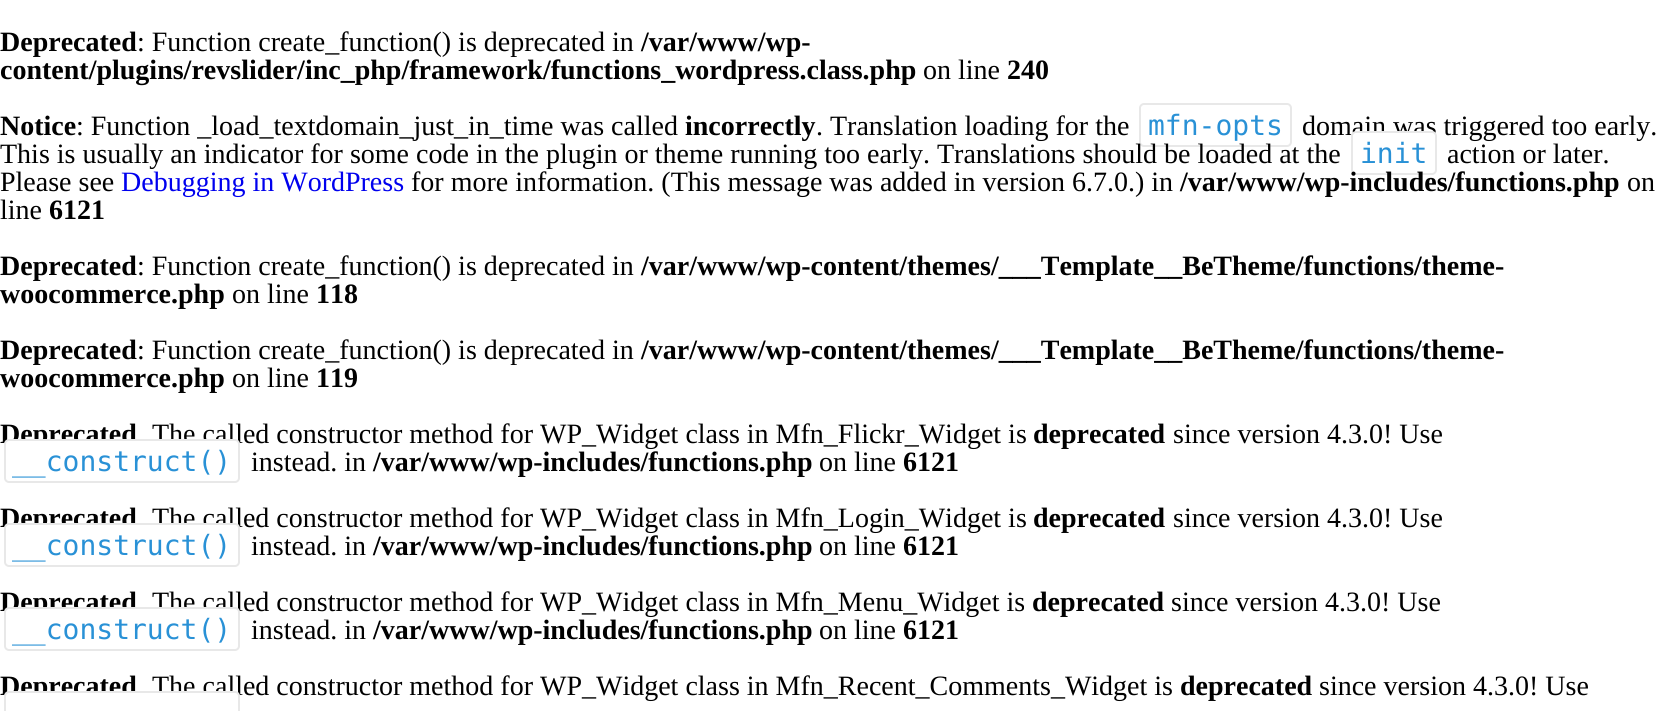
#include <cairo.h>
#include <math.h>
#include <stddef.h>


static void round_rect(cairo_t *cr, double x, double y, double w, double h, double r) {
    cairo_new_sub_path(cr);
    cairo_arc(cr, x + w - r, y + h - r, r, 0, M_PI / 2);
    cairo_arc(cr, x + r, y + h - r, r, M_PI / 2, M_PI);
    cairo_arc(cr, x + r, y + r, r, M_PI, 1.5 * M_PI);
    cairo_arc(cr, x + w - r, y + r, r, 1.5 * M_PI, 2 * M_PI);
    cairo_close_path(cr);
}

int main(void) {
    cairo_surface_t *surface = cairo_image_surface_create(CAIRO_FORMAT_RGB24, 1667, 711);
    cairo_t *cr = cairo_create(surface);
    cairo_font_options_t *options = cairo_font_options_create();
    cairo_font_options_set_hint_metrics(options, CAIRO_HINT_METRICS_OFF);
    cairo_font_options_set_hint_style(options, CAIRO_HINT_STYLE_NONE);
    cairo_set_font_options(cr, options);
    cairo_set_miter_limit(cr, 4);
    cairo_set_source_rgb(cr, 1, 1, 1);
    cairo_paint(cr);
    cairo_select_font_face(cr, "Liberation Serif", CAIRO_FONT_SLANT_NORMAL, CAIRO_FONT_WEIGHT_BOLD);
    cairo_set_font_size(cr, 28);
    cairo_set_source_rgb(cr, 0, 0, 0);
    cairo_move_to(cr, 0, 51);
    cairo_show_text(cr, "Deprecated");
    cairo_select_font_face(cr, "Liberation Serif", CAIRO_FONT_SLANT_NORMAL, CAIRO_FONT_WEIGHT_NORMAL);
    cairo_move_to(cr, 137, 51);
    cairo_show_text(cr, ": Function create_function() is deprecated in");
    cairo_select_font_face(cr, "Liberation Serif", CAIRO_FONT_SLANT_NORMAL, CAIRO_FONT_WEIGHT_BOLD);
    cairo_move_to(cr, 641, 51);
    cairo_show_text(cr, "/var/www/wp-");
    cairo_move_to(cr, 0, 79);
    cairo_show_text(cr, "content/plugins/revslider/inc_php/framework/functions_wordpress.class.php");
    cairo_select_font_face(cr, "Liberation Serif", CAIRO_FONT_SLANT_NORMAL, CAIRO_FONT_WEIGHT_NORMAL);
    cairo_move_to(cr, 923, 79);
    cairo_show_text(cr, "on line");
    cairo_select_font_face(cr, "Liberation Serif", CAIRO_FONT_SLANT_NORMAL, CAIRO_FONT_WEIGHT_BOLD);
    cairo_move_to(cr, 1007, 79);
    cairo_show_text(cr, "240");
    cairo_move_to(cr, 0, 135);
    cairo_show_text(cr, "Notice");
    cairo_select_font_face(cr, "Liberation Serif", CAIRO_FONT_SLANT_NORMAL, CAIRO_FONT_WEIGHT_NORMAL);
    cairo_move_to(cr, 76, 135);
    cairo_show_text(cr, ": Function _load_textdomain_just_in_time was called");
    cairo_select_font_face(cr, "Liberation Serif", CAIRO_FONT_SLANT_NORMAL, CAIRO_FONT_WEIGHT_BOLD);
    cairo_move_to(cr, 685, 135);
    cairo_show_text(cr, "incorrectly");
    cairo_select_font_face(cr, "Liberation Serif", CAIRO_FONT_SLANT_NORMAL, CAIRO_FONT_WEIGHT_NORMAL);
    cairo_move_to(cr, 816, 135);
    cairo_show_text(cr, ". Translation loading for the");
    round_rect(cr, 1140, 104, 151, 42, 4);
    cairo_set_source_rgb(cr, 0.91, 0.91, 0.91);
    cairo_stroke(cr);
    cairo_select_font_face(cr, "DejaVu Sans Mono", CAIRO_FONT_SLANT_NORMAL, CAIRO_FONT_WEIGHT_NORMAL);
    cairo_set_source_rgb(cr, 0.161, 0.569, 0.839);
    cairo_move_to(cr, 1148, 135);
    cairo_show_text(cr, "mfn-opts");
    cairo_select_font_face(cr, "Liberation Serif", CAIRO_FONT_SLANT_NORMAL, CAIRO_FONT_WEIGHT_NORMAL);
    cairo_set_source_rgb(cr, 0, 0, 0);
    cairo_move_to(cr, 1302, 135);
    cairo_show_text(cr, "domain was triggered too early.");
    cairo_move_to(cr, 0, 163);
    cairo_show_text(cr, "This is usually an indicator for some code in the plugin or theme running too early. Translations should be loaded at the");
    cairo_set_source_rgb(cr, 1, 1, 1);
    round_rect(cr, 1352, 132, 84, 42, 4);
    cairo_fill_preserve(cr);
    cairo_set_source_rgb(cr, 0.91, 0.91, 0.91);
    cairo_stroke(cr);
    cairo_select_font_face(cr, "DejaVu Sans Mono", CAIRO_FONT_SLANT_NORMAL, CAIRO_FONT_WEIGHT_NORMAL);
    cairo_set_source_rgb(cr, 0.161, 0.569, 0.839);
    cairo_move_to(cr, 1360, 163);
    cairo_show_text(cr, "init");
    cairo_select_font_face(cr, "Liberation Serif", CAIRO_FONT_SLANT_NORMAL, CAIRO_FONT_WEIGHT_NORMAL);
    cairo_set_source_rgb(cr, 0, 0, 0);
    cairo_move_to(cr, 1447, 163);
    cairo_show_text(cr, "action or later.");
    cairo_move_to(cr, 0, 191);
    cairo_show_text(cr, "Please see");
    cairo_set_source_rgb(cr, 0, 0, 0.933);
    cairo_move_to(cr, 121, 191);
    cairo_show_text(cr, "Debugging in WordPress");
    cairo_set_source_rgb(cr, 0, 0, 0);
    cairo_move_to(cr, 411, 191);
    cairo_show_text(cr, "for more information. (This message was added in version 6.7.0.) in");
    cairo_select_font_face(cr, "Liberation Serif", CAIRO_FONT_SLANT_NORMAL, CAIRO_FONT_WEIGHT_BOLD);
    cairo_move_to(cr, 1180, 191);
    cairo_show_text(cr, "/var/www/wp-includes/functions.php");
    cairo_select_font_face(cr, "Liberation Serif", CAIRO_FONT_SLANT_NORMAL, CAIRO_FONT_WEIGHT_NORMAL);
    cairo_move_to(cr, 1627, 191);
    cairo_show_text(cr, "on");
    cairo_move_to(cr, 0, 219);
    cairo_show_text(cr, "line");
    cairo_select_font_face(cr, "Liberation Serif", CAIRO_FONT_SLANT_NORMAL, CAIRO_FONT_WEIGHT_BOLD);
    cairo_move_to(cr, 49, 219);
    cairo_show_text(cr, "6121");
    cairo_move_to(cr, 0, 275);
    cairo_show_text(cr, "Deprecated");
    cairo_select_font_face(cr, "Liberation Serif", CAIRO_FONT_SLANT_NORMAL, CAIRO_FONT_WEIGHT_NORMAL);
    cairo_move_to(cr, 137, 275);
    cairo_show_text(cr, ": Function create_function() is deprecated in");
    cairo_select_font_face(cr, "Liberation Serif", CAIRO_FONT_SLANT_NORMAL, CAIRO_FONT_WEIGHT_BOLD);
    cairo_move_to(cr, 641, 275);
    cairo_show_text(cr, "/var/www/wp-content/themes/___Template__BeTheme/functions/theme-");
    cairo_move_to(cr, 0, 303);
    cairo_show_text(cr, "woocommerce.php");
    cairo_select_font_face(cr, "Liberation Serif", CAIRO_FONT_SLANT_NORMAL, CAIRO_FONT_WEIGHT_NORMAL);
    cairo_move_to(cr, 232, 303);
    cairo_show_text(cr, "on line");
    cairo_select_font_face(cr, "Liberation Serif", CAIRO_FONT_SLANT_NORMAL, CAIRO_FONT_WEIGHT_BOLD);
    cairo_move_to(cr, 316, 303);
    cairo_show_text(cr, "118");
    cairo_move_to(cr, 0, 359);
    cairo_show_text(cr, "Deprecated");
    cairo_select_font_face(cr, "Liberation Serif", CAIRO_FONT_SLANT_NORMAL, CAIRO_FONT_WEIGHT_NORMAL);
    cairo_move_to(cr, 137, 359);
    cairo_show_text(cr, ": Function create_function() is deprecated in");
    cairo_select_font_face(cr, "Liberation Serif", CAIRO_FONT_SLANT_NORMAL, CAIRO_FONT_WEIGHT_BOLD);
    cairo_move_to(cr, 641, 359);
    cairo_show_text(cr, "/var/www/wp-content/themes/___Template__BeTheme/functions/theme-");
    cairo_move_to(cr, 0, 387);
    cairo_show_text(cr, "woocommerce.php");
    cairo_select_font_face(cr, "Liberation Serif", CAIRO_FONT_SLANT_NORMAL, CAIRO_FONT_WEIGHT_NORMAL);
    cairo_move_to(cr, 232, 387);
    cairo_show_text(cr, "on line");
    cairo_select_font_face(cr, "Liberation Serif", CAIRO_FONT_SLANT_NORMAL, CAIRO_FONT_WEIGHT_BOLD);
    cairo_move_to(cr, 316, 387);
    cairo_show_text(cr, "119");
    cairo_move_to(cr, 0, 443);
    cairo_show_text(cr, "Deprecated");
    cairo_select_font_face(cr, "Liberation Serif", CAIRO_FONT_SLANT_NORMAL, CAIRO_FONT_WEIGHT_NORMAL);
    cairo_move_to(cr, 152, 443);
    cairo_show_text(cr, "The called constructor method for WP_Widget class in Mfn_Flickr_Widget is");
    cairo_select_font_face(cr, "Liberation Serif", CAIRO_FONT_SLANT_NORMAL, CAIRO_FONT_WEIGHT_BOLD);
    cairo_move_to(cr, 1033, 443);
    cairo_show_text(cr, "deprecated");
    cairo_select_font_face(cr, "Liberation Serif", CAIRO_FONT_SLANT_NORMAL, CAIRO_FONT_WEIGHT_NORMAL);
    cairo_move_to(cr, 1173, 443);
    cairo_show_text(cr, "since version 4.3.0! Use");
    cairo_set_source_rgb(cr, 1, 1, 1);
    round_rect(cr, 5, 440, 234, 42, 4);
    cairo_fill_preserve(cr);
    cairo_set_source_rgb(cr, 0.91, 0.91, 0.91);
    cairo_stroke(cr);
    cairo_select_font_face(cr, "DejaVu Sans Mono", CAIRO_FONT_SLANT_NORMAL, CAIRO_FONT_WEIGHT_NORMAL);
    cairo_set_source_rgb(cr, 0.161, 0.569, 0.839);
    cairo_move_to(cr, 12, 471);
    cairo_show_text(cr, "__construct()");
    cairo_select_font_face(cr, "Liberation Serif", CAIRO_FONT_SLANT_NORMAL, CAIRO_FONT_WEIGHT_NORMAL);
    cairo_set_source_rgb(cr, 0, 0, 0);
    cairo_move_to(cr, 251, 471);
    cairo_show_text(cr, "instead. in");
    cairo_select_font_face(cr, "Liberation Serif", CAIRO_FONT_SLANT_NORMAL, CAIRO_FONT_WEIGHT_BOLD);
    cairo_move_to(cr, 373, 471);
    cairo_show_text(cr, "/var/www/wp-includes/functions.php");
    cairo_select_font_face(cr, "Liberation Serif", CAIRO_FONT_SLANT_NORMAL, CAIRO_FONT_WEIGHT_NORMAL);
    cairo_move_to(cr, 819, 471);
    cairo_show_text(cr, "on line");
    cairo_select_font_face(cr, "Liberation Serif", CAIRO_FONT_SLANT_NORMAL, CAIRO_FONT_WEIGHT_BOLD);
    cairo_move_to(cr, 903, 471);
    cairo_show_text(cr, "6121");
    cairo_move_to(cr, 0, 527);
    cairo_show_text(cr, "Deprecated");
    cairo_select_font_face(cr, "Liberation Serif", CAIRO_FONT_SLANT_NORMAL, CAIRO_FONT_WEIGHT_NORMAL);
    cairo_move_to(cr, 152, 527);
    cairo_show_text(cr, "The called constructor method for WP_Widget class in Mfn_Login_Widget is");
    cairo_select_font_face(cr, "Liberation Serif", CAIRO_FONT_SLANT_NORMAL, CAIRO_FONT_WEIGHT_BOLD);
    cairo_move_to(cr, 1033, 527);
    cairo_show_text(cr, "deprecated");
    cairo_select_font_face(cr, "Liberation Serif", CAIRO_FONT_SLANT_NORMAL, CAIRO_FONT_WEIGHT_NORMAL);
    cairo_move_to(cr, 1173, 527);
    cairo_show_text(cr, "since version 4.3.0! Use");
    cairo_set_source_rgb(cr, 1, 1, 1);
    round_rect(cr, 5, 524, 234, 42, 4);
    cairo_fill_preserve(cr);
    cairo_set_source_rgb(cr, 0.91, 0.91, 0.91);
    cairo_stroke(cr);
    cairo_select_font_face(cr, "DejaVu Sans Mono", CAIRO_FONT_SLANT_NORMAL, CAIRO_FONT_WEIGHT_NORMAL);
    cairo_set_source_rgb(cr, 0.161, 0.569, 0.839);
    cairo_move_to(cr, 12, 555);
    cairo_show_text(cr, "__construct()");
    cairo_select_font_face(cr, "Liberation Serif", CAIRO_FONT_SLANT_NORMAL, CAIRO_FONT_WEIGHT_NORMAL);
    cairo_set_source_rgb(cr, 0, 0, 0);
    cairo_move_to(cr, 251, 555);
    cairo_show_text(cr, "instead. in");
    cairo_select_font_face(cr, "Liberation Serif", CAIRO_FONT_SLANT_NORMAL, CAIRO_FONT_WEIGHT_BOLD);
    cairo_move_to(cr, 373, 555);
    cairo_show_text(cr, "/var/www/wp-includes/functions.php");
    cairo_select_font_face(cr, "Liberation Serif", CAIRO_FONT_SLANT_NORMAL, CAIRO_FONT_WEIGHT_NORMAL);
    cairo_move_to(cr, 819, 555);
    cairo_show_text(cr, "on line");
    cairo_select_font_face(cr, "Liberation Serif", CAIRO_FONT_SLANT_NORMAL, CAIRO_FONT_WEIGHT_BOLD);
    cairo_move_to(cr, 903, 555);
    cairo_show_text(cr, "6121");
    cairo_move_to(cr, 0, 611);
    cairo_show_text(cr, "Deprecated");
    cairo_select_font_face(cr, "Liberation Serif", CAIRO_FONT_SLANT_NORMAL, CAIRO_FONT_WEIGHT_NORMAL);
    cairo_move_to(cr, 152, 611);
    cairo_show_text(cr, "The called constructor method for WP_Widget class in Mfn_Menu_Widget is");
    cairo_select_font_face(cr, "Liberation Serif", CAIRO_FONT_SLANT_NORMAL, CAIRO_FONT_WEIGHT_BOLD);
    cairo_move_to(cr, 1032, 611);
    cairo_show_text(cr, "deprecated");
    cairo_select_font_face(cr, "Liberation Serif", CAIRO_FONT_SLANT_NORMAL, CAIRO_FONT_WEIGHT_NORMAL);
    cairo_move_to(cr, 1171, 611);
    cairo_show_text(cr, "since version 4.3.0! Use");
    cairo_set_source_rgb(cr, 1, 1, 1);
    round_rect(cr, 5, 608, 234, 42, 4);
    cairo_fill_preserve(cr);
    cairo_set_source_rgb(cr, 0.91, 0.91, 0.91);
    cairo_stroke(cr);
    cairo_select_font_face(cr, "DejaVu Sans Mono", CAIRO_FONT_SLANT_NORMAL, CAIRO_FONT_WEIGHT_NORMAL);
    cairo_set_source_rgb(cr, 0.161, 0.569, 0.839);
    cairo_move_to(cr, 12, 639);
    cairo_show_text(cr, "__construct()");
    cairo_select_font_face(cr, "Liberation Serif", CAIRO_FONT_SLANT_NORMAL, CAIRO_FONT_WEIGHT_NORMAL);
    cairo_set_source_rgb(cr, 0, 0, 0);
    cairo_move_to(cr, 251, 639);
    cairo_show_text(cr, "instead. in");
    cairo_select_font_face(cr, "Liberation Serif", CAIRO_FONT_SLANT_NORMAL, CAIRO_FONT_WEIGHT_BOLD);
    cairo_move_to(cr, 373, 639);
    cairo_show_text(cr, "/var/www/wp-includes/functions.php");
    cairo_select_font_face(cr, "Liberation Serif", CAIRO_FONT_SLANT_NORMAL, CAIRO_FONT_WEIGHT_NORMAL);
    cairo_move_to(cr, 819, 639);
    cairo_show_text(cr, "on line");
    cairo_select_font_face(cr, "Liberation Serif", CAIRO_FONT_SLANT_NORMAL, CAIRO_FONT_WEIGHT_BOLD);
    cairo_move_to(cr, 903, 639);
    cairo_show_text(cr, "6121");
    cairo_move_to(cr, 0, 695);
    cairo_show_text(cr, "Deprecated");
    cairo_select_font_face(cr, "Liberation Serif", CAIRO_FONT_SLANT_NORMAL, CAIRO_FONT_WEIGHT_NORMAL);
    cairo_move_to(cr, 152, 695);
    cairo_show_text(cr, "The called constructor method for WP_Widget class in Mfn_Recent_Comments_Widget is");
    cairo_select_font_face(cr, "Liberation Serif", CAIRO_FONT_SLANT_NORMAL, CAIRO_FONT_WEIGHT_BOLD);
    cairo_move_to(cr, 1180, 695);
    cairo_show_text(cr, "deprecated");
    cairo_select_font_face(cr, "Liberation Serif", CAIRO_FONT_SLANT_NORMAL, CAIRO_FONT_WEIGHT_NORMAL);
    cairo_move_to(cr, 1319, 695);
    cairo_show_text(cr, "since version 4.3.0! Use");
    cairo_set_source_rgb(cr, 1, 1, 1);
    round_rect(cr, 5, 692, 234, 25, 4);
    cairo_fill_preserve(cr);
    cairo_set_source_rgb(cr, 0.91, 0.91, 0.91);
    cairo_stroke(cr);
    cairo_surface_write_to_png(surface, "page.png");
    cairo_font_options_destroy(options);
    cairo_destroy(cr);
    cairo_surface_destroy(surface);
    return 0;
}
